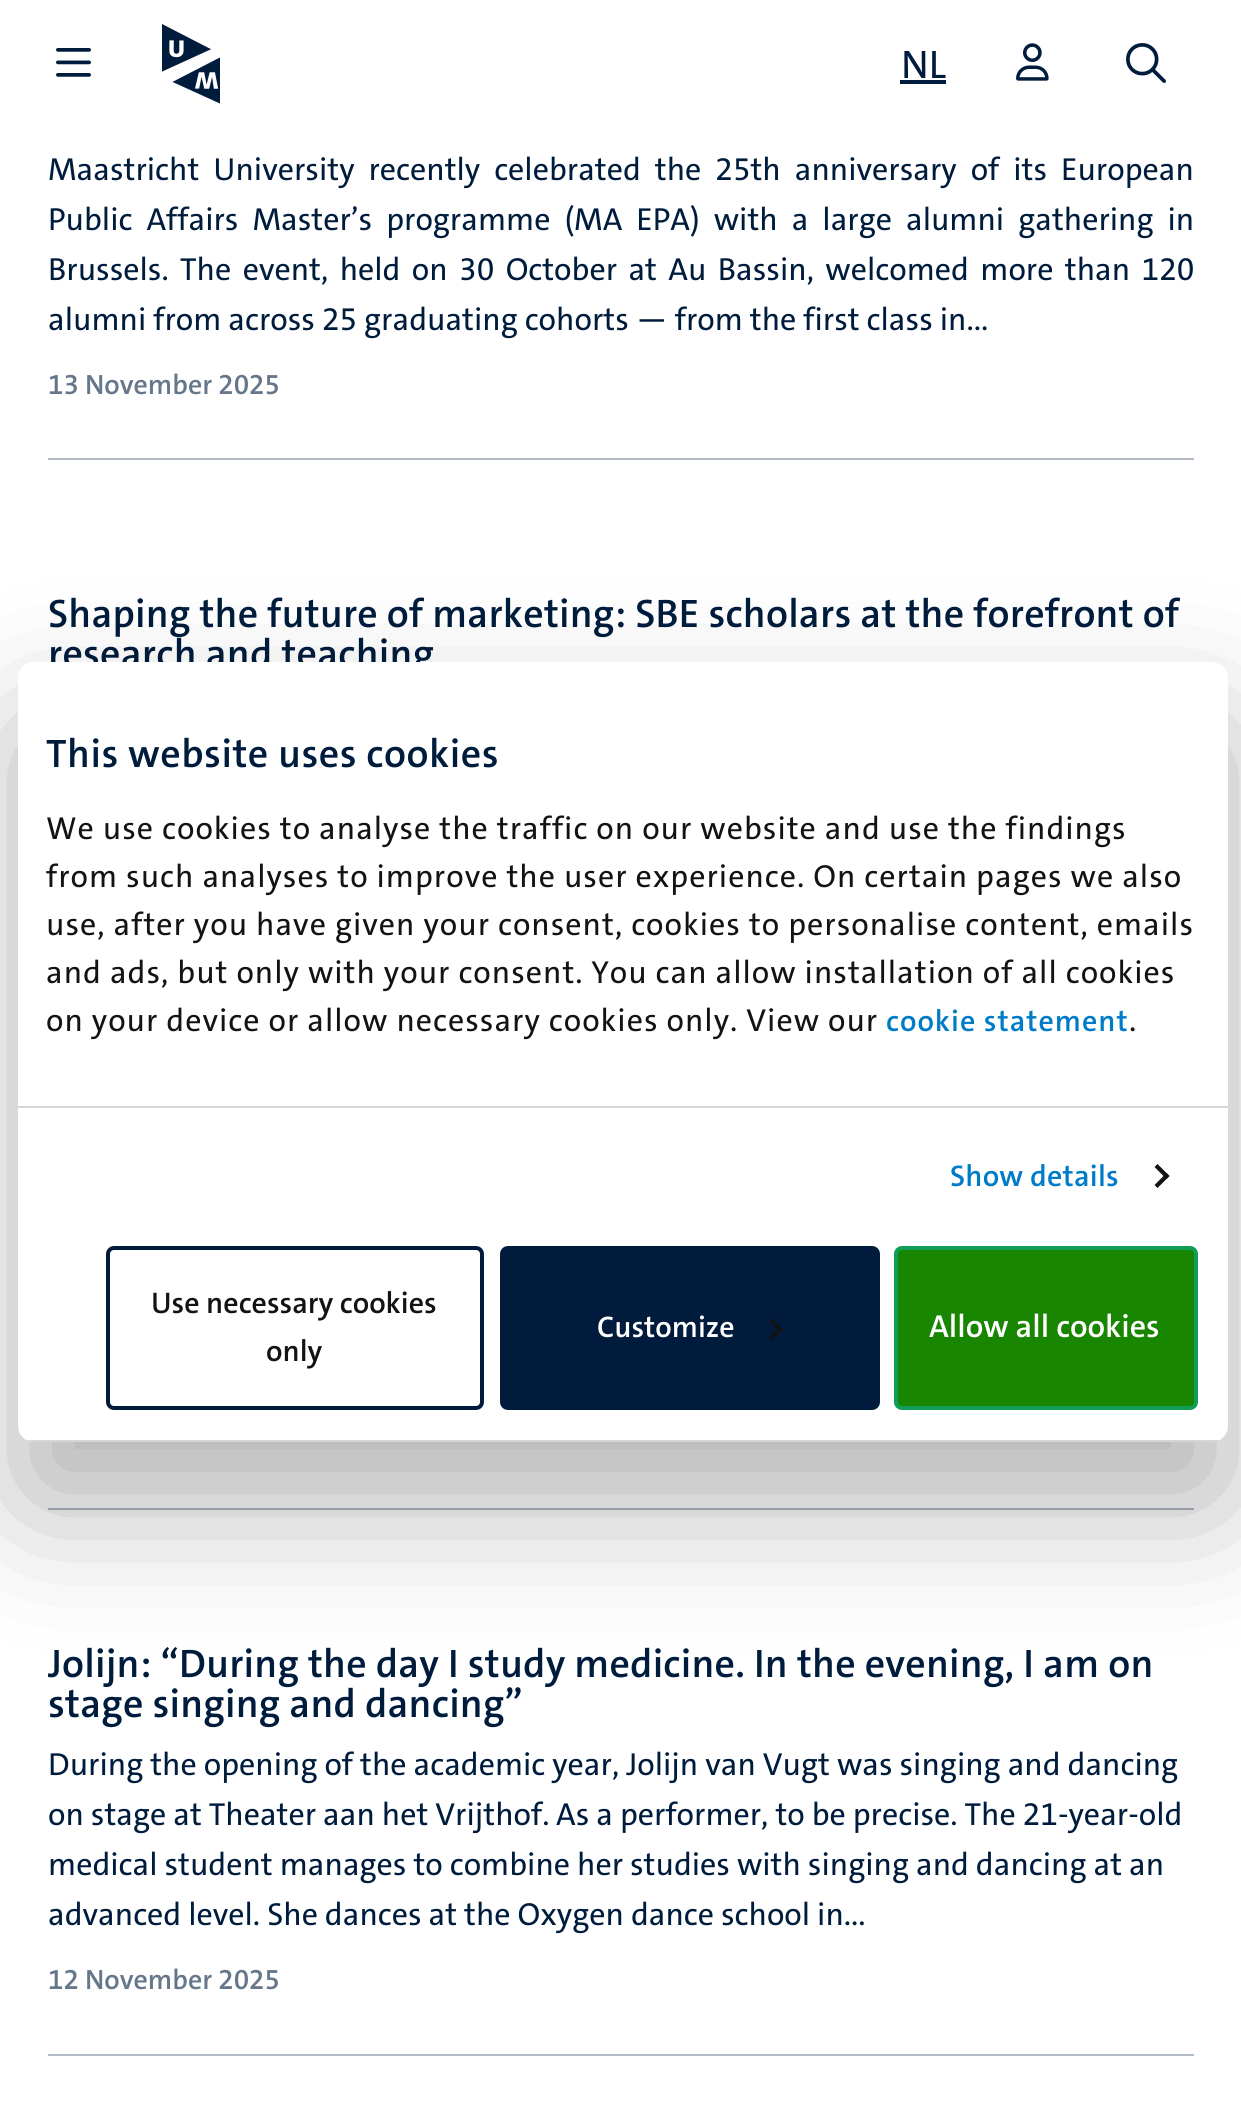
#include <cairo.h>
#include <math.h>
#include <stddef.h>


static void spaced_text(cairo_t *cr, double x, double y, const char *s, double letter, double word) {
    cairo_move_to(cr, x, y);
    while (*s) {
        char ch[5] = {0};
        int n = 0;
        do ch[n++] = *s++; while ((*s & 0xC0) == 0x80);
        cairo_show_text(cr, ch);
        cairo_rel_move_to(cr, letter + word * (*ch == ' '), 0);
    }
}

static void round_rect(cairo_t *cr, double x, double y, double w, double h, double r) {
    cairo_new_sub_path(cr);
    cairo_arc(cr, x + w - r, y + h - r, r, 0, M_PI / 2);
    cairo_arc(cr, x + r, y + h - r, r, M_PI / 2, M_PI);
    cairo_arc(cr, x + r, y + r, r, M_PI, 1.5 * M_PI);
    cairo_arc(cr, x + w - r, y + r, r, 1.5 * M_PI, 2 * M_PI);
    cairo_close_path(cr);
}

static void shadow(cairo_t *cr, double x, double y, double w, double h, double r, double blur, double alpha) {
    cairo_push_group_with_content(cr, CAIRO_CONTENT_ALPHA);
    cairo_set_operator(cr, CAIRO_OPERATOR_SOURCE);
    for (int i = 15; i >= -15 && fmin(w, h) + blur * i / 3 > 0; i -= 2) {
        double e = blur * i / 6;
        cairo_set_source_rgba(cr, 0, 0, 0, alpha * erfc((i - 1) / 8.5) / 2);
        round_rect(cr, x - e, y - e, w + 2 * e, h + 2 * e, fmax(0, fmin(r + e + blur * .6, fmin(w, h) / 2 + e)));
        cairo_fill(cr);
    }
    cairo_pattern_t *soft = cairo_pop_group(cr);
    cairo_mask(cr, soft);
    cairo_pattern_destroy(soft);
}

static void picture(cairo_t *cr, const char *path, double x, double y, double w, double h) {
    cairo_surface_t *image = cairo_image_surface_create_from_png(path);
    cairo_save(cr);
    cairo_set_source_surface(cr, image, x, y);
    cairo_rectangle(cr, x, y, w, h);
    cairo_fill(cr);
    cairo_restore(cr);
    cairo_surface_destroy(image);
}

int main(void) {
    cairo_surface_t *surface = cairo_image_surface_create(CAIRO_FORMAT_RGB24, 1241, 2101);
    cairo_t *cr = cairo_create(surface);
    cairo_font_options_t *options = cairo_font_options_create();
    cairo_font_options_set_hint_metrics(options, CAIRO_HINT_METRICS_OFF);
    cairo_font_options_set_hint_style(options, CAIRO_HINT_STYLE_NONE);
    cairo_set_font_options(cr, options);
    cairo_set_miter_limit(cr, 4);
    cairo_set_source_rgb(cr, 1, 1, 1);
    cairo_paint(cr);
    picture(cr, "img1.png", 56, 48, 35, 29);
    picture(cr, "img2.png", 162, 24, 58, 80);
    cairo_select_font_face(cr, "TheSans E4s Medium", CAIRO_FONT_SLANT_NORMAL, CAIRO_FONT_WEIGHT_NORMAL);
    cairo_set_font_size(cr, 40);
    cairo_set_source_rgb(cr, 0, 0.11, 0.239);
    cairo_move_to(cr, 901, 78);
    cairo_show_text(cr, "NL");
    cairo_rectangle(cr, 900, 80, 46, 4);
    cairo_fill(cr);
    picture(cr, "img3.png", 1016, 43, 33, 38);
    picture(cr, "img4.png", 1126, 43, 40, 40);
    cairo_select_font_face(cr, "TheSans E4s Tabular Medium", CAIRO_FONT_SLANT_NORMAL, CAIRO_FONT_WEIGHT_NORMAL);
    cairo_set_font_size(cr, 32);
    spaced_text(cr, 48, 180, "Maastricht University recently celebrated the 25th anniversary of its European", 0, 7);
    cairo_select_font_face(cr, "TheSans E4s Medium", CAIRO_FONT_SLANT_NORMAL, CAIRO_FONT_WEIGHT_NORMAL);
    spaced_text(cr, 48, 230, "Public Affairs Master’s programme (MA EPA) with a large alumni gathering in", 0, 7);
    cairo_select_font_face(cr, "TheSans E4s Tabular Medium", CAIRO_FONT_SLANT_NORMAL, CAIRO_FONT_WEIGHT_NORMAL);
    spaced_text(cr, 48, 280, "Brussels. The event, held on 30 October at Au Bassin, welcomed more than 120", 0, 4.4);
    cairo_move_to(cr, 48, 330);
    cairo_show_text(cr, "alumni from across 25 graduating cohorts — from the first class in...");
    cairo_select_font_face(cr, "TheSans E4s Tabular SemiBold", CAIRO_FONT_SLANT_NORMAL, CAIRO_FONT_WEIGHT_NORMAL);
    cairo_set_font_size(cr, 28);
    cairo_set_source_rgb(cr, 0.4, 0.467, 0.545);
    cairo_move_to(cr, 48, 394);
    cairo_show_text(cr, "13 November 2025");
    cairo_set_source_rgb(cr, 0.698, 0.733, 0.773);
    cairo_rectangle(cr, 48, 458, 1146, 2);
    cairo_fill(cr);
    cairo_select_font_face(cr, "TheSans E4s SemiBold", CAIRO_FONT_SLANT_NORMAL, CAIRO_FONT_WEIGHT_NORMAL);
    cairo_set_font_size(cr, 40);
    cairo_set_source_rgb(cr, 0, 0.11, 0.239);
    spaced_text(cr, 48, 627, "Shaping the future of marketing: SBE scholars at the forefront of", 0.2, 0);
    spaced_text(cr, 48, 667, "research and teaching", 0.2, 0);
    cairo_set_source_rgb(cr, 0.698, 0.733, 0.773);
    cairo_rectangle(cr, 48, 1508, 1146, 2);
    cairo_fill(cr);
    cairo_set_source_rgb(cr, 0, 0.11, 0.239);
    spaced_text(cr, 48, 1677, "Jolijn: “During the day I study medicine. In the evening, I am on", 0.2, 0);
    spaced_text(cr, 48, 1717, "stage singing and dancing”", 0.2, 0);
    cairo_select_font_face(cr, "TheSans E4s Medium", CAIRO_FONT_SLANT_NORMAL, CAIRO_FONT_WEIGHT_NORMAL);
    cairo_set_font_size(cr, 32);
    cairo_move_to(cr, 48, 1775);
    cairo_show_text(cr, "During the opening of the academic year, Jolijn van Vugt was singing and dancing");
    cairo_move_to(cr, 48, 1825);
    cairo_show_text(cr, "on stage at Theater aan het Vrijthof.");
    cairo_select_font_face(cr, "TheSans E4s Tabular Medium", CAIRO_FONT_SLANT_NORMAL, CAIRO_FONT_WEIGHT_NORMAL);
    cairo_move_to(cr, 556, 1825);
    cairo_show_text(cr, "As a performer, to be precise. The 21-year-old");
    cairo_select_font_face(cr, "TheSans E4s Medium", CAIRO_FONT_SLANT_NORMAL, CAIRO_FONT_WEIGHT_NORMAL);
    cairo_move_to(cr, 48, 1875);
    cairo_show_text(cr, "medical student manages to combine her studies with singing and dancing at an");
    cairo_move_to(cr, 48, 1925);
    cairo_show_text(cr, "advanced level. She dances at the Oxygen dance school in...");
    cairo_select_font_face(cr, "TheSans E4s Tabular SemiBold", CAIRO_FONT_SLANT_NORMAL, CAIRO_FONT_WEIGHT_NORMAL);
    cairo_set_font_size(cr, 28);
    cairo_set_source_rgb(cr, 0.4, 0.467, 0.545);
    cairo_move_to(cr, 48, 1989);
    cairo_show_text(cr, "12 November 2025");
    cairo_set_source_rgb(cr, 0.698, 0.733, 0.773);
    cairo_rectangle(cr, 48, 2054, 1146, 2);
    cairo_fill(cr);
    cairo_set_source_rgb(cr, 0, 0, 0);
    shadow(cr, 18, 726, 1210, 780, 16, 68, 0.3);
    cairo_set_source_rgb(cr, 1, 1, 1);
    round_rect(cr, 18, 662, 1210, 780, 16);
    cairo_fill(cr);
    cairo_set_source_rgb(cr, 0.839, 0.839, 0.839);
    cairo_rectangle(cr, 18, 1106, 1210, 2);
    cairo_fill(cr);
    cairo_select_font_face(cr, "TheSans E4s SemiBold", CAIRO_FONT_SLANT_NORMAL, CAIRO_FONT_WEIGHT_NORMAL);
    cairo_set_font_size(cr, 40);
    cairo_set_source_rgb(cr, 0, 0.11, 0.239);
    spaced_text(cr, 46, 767, "This website uses cookies", 0.5, 0);
    cairo_select_font_face(cr, "TheSans E4s Medium", CAIRO_FONT_SLANT_NORMAL, CAIRO_FONT_WEIGHT_NORMAL);
    cairo_set_font_size(cr, 32);
    cairo_set_source_rgb(cr, 0.078, 0.078, 0.078);
    spaced_text(cr, 46, 839, "We use cookies to analyse the traffic on our website and use the findings", 1, 0);
    spaced_text(cr, 46, 887, "from such analyses to improve the user experience. On certain pages we also", 1, 0);
    spaced_text(cr, 46, 935, "use, after you have given your consent, cookies to personalise content, emails", 1, 0);
    spaced_text(cr, 46, 983, "and ads, but only with your consent. You can allow installation of all cookies", 1, 0);
    spaced_text(cr, 46, 1031, "on your device or allow necessary cookies only. View our", 1, 0);
    cairo_select_font_face(cr, "TheSans E4s SemiBold", CAIRO_FONT_SLANT_NORMAL, CAIRO_FONT_WEIGHT_NORMAL);
    cairo_set_font_size(cr, 30);
    cairo_set_source_rgb(cr, 0, 0.482, 0.78);
    spaced_text(cr, 886, 1031, "cookie statement", 1, 0);
    cairo_select_font_face(cr, "TheSans E4s Medium", CAIRO_FONT_SLANT_NORMAL, CAIRO_FONT_WEIGHT_NORMAL);
    cairo_set_font_size(cr, 32);
    cairo_set_source_rgb(cr, 0.078, 0.078, 0.078);
    spaced_text(cr, 1129, 1031, ".", 1, 0);
    cairo_select_font_face(cr, "TheSans E4s SemiBold", CAIRO_FONT_SLANT_NORMAL, CAIRO_FONT_WEIGHT_NORMAL);
    cairo_set_font_size(cr, 30);
    cairo_set_source_rgb(cr, 0, 0.482, 0.78);
    spaced_text(cr, 950, 1186, "Show details", 0.2, 0);
    cairo_set_source_rgb(cr, 0.078, 0.078, 0.078);
    cairo_new_path(cr);
    cairo_move_to(cr, 1157.5, 1164);
    cairo_line_to(cr, 1169.5, 1176);
    cairo_line_to(cr, 1166.5, 1179);
    cairo_line_to(cr, 1154.5, 1167);
    cairo_close_path(cr);
    cairo_fill(cr);
    cairo_new_path(cr);
    cairo_move_to(cr, 1166.5, 1173);
    cairo_line_to(cr, 1169.5, 1176);
    cairo_line_to(cr, 1157.5, 1188);
    cairo_line_to(cr, 1154.5, 1185);
    cairo_close_path(cr);
    cairo_fill(cr);
    cairo_save(cr);
    round_rect(cr, 18, 662, 1210, 780, 16);
    cairo_clip(cr);
    cairo_set_source_rgb(cr, 0.839, 0.839, 0.839);
    cairo_rectangle(cr, 18, 1440, 1210, 2);
    cairo_fill(cr);
    cairo_restore(cr);
    round_rect(cr, 108, 1248, 374, 160, 6);
    cairo_set_source_rgb(cr, 0.004, 0.106, 0.235);
    cairo_set_line_width(cr, 4);
    cairo_stroke(cr);
    cairo_set_source_rgb(cr, 0.078, 0.078, 0.078);
    cairo_move_to(cr, 151, 1313);
    cairo_show_text(cr, "Use necessary cookies");
    cairo_move_to(cr, 266, 1361);
    cairo_show_text(cr, "only");
    cairo_set_source_rgb(cr, 0.004, 0.106, 0.235);
    round_rect(cr, 502, 1248, 376, 160, 6);
    cairo_fill_preserve(cr);
    cairo_stroke(cr);
    cairo_set_source_rgb(cr, 1, 1, 1);
    cairo_move_to(cr, 597, 1337);
    cairo_show_text(cr, "Customize");
    cairo_set_source_rgb(cr, 0.078, 0.078, 0.078);
    cairo_new_path(cr);
    cairo_move_to(cr, 772.5, 1319);
    cairo_line_to(cr, 783, 1329.5);
    cairo_line_to(cr, 780.5, 1332.5);
    cairo_line_to(cr, 769.5, 1321.5);
    cairo_close_path(cr);
    cairo_fill(cr);
    cairo_new_path(cr);
    cairo_move_to(cr, 780.5, 1326.5);
    cairo_line_to(cr, 783, 1329.5);
    cairo_line_to(cr, 772.5, 1340);
    cairo_line_to(cr, 769.5, 1337.5);
    cairo_close_path(cr);
    cairo_fill(cr);
    cairo_set_source_rgb(cr, 0.094, 0.525, 0);
    round_rect(cr, 896, 1248, 300, 160, 6);
    cairo_fill_preserve(cr);
    cairo_set_source_rgb(cr, 0.059, 0.616, 0.345);
    cairo_stroke(cr);
    cairo_set_font_size(cr, 32);
    cairo_set_source_rgb(cr, 1, 1, 1);
    cairo_move_to(cr, 929, 1337);
    cairo_show_text(cr, "Allow all cookies");
    cairo_surface_write_to_png(surface, "page.png");
    cairo_font_options_destroy(options);
    cairo_destroy(cr);
    cairo_surface_destroy(surface);
    return 0;
}
